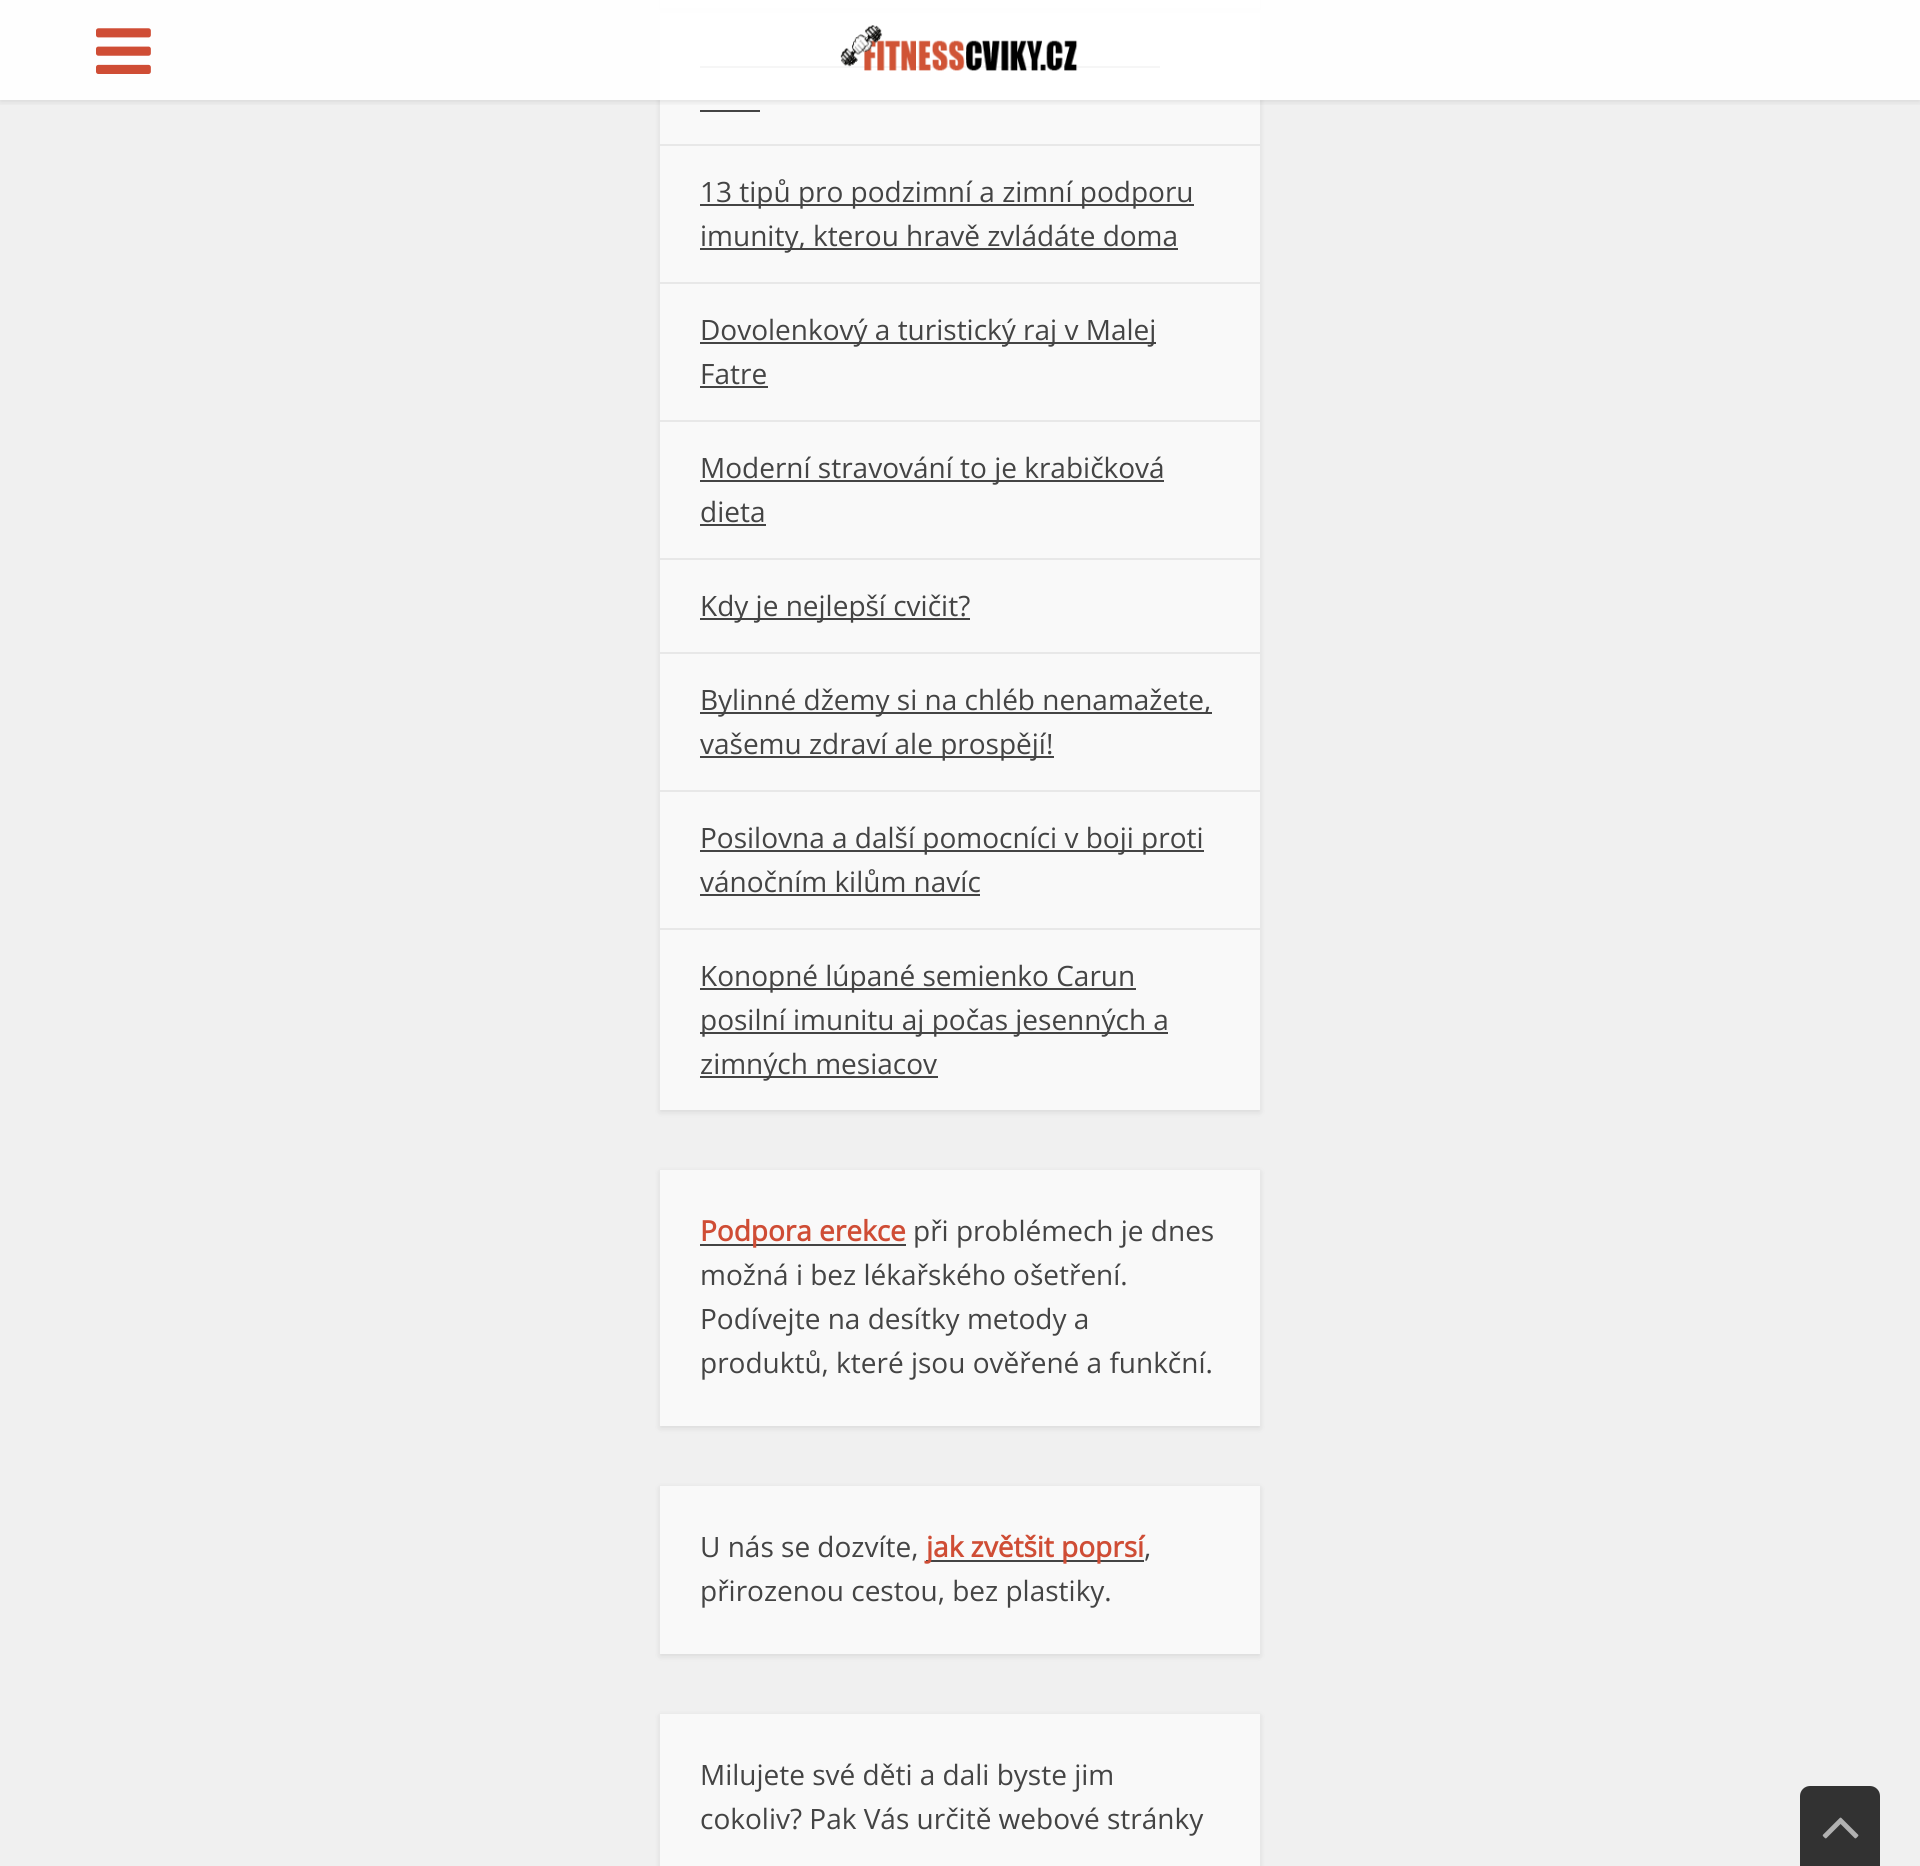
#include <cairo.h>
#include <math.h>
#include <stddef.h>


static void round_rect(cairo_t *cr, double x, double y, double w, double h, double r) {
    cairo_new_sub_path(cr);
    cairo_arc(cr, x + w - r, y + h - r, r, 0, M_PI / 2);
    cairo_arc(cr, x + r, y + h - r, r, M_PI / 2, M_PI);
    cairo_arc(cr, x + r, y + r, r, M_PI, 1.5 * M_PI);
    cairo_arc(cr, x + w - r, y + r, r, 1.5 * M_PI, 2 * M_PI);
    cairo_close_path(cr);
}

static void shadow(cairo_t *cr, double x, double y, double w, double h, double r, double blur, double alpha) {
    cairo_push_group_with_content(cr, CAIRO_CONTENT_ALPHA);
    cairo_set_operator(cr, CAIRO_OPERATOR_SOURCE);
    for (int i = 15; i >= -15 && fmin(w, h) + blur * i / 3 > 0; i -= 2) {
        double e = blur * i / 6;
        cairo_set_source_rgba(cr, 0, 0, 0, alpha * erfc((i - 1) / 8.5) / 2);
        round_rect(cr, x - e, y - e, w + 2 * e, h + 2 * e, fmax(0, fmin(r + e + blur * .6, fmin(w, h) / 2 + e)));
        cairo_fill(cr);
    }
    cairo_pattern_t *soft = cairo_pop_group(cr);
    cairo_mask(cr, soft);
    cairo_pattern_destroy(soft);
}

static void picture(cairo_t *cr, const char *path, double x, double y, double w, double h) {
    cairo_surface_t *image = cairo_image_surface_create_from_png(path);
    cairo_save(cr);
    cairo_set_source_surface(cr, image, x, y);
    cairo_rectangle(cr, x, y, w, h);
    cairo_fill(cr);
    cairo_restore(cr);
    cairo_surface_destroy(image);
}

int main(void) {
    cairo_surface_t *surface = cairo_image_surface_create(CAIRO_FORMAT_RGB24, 1920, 1866);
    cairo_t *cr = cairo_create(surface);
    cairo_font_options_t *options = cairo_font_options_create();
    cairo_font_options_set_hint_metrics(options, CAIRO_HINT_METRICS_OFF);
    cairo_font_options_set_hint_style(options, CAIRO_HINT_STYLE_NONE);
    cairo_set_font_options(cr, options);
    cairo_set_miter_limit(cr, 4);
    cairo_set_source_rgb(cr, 0.941, 0.941, 0.941);
    cairo_paint(cr);
    cairo_set_source_rgb(cr, 0, 0, 0);
    shadow(cr, 660, -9, 600, 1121, 0, 3, 0.1);
    cairo_set_source_rgb(cr, 0.976, 0.976, 0.976);
    cairo_rectangle(cr, 660, 8, 600, 1102);
    cairo_fill(cr);
    cairo_set_source_rgb(cr, 0, 0, 0);
    shadow(cr, 660, -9, 600, 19, 0, 3, 0.1);
    cairo_set_source_rgb(cr, 1, 1, 1);
    cairo_rectangle(cr, 660, 0, 600, 8);
    cairo_fill(cr);
    cairo_set_source_rgb(cr, 0.267, 0.267, 0.267);
    cairo_rectangle(cr, 700, 66, 460, 2);
    cairo_fill(cr);
    cairo_rectangle(cr, 700, 110, 60, 2);
    cairo_fill(cr);
    cairo_save(cr);
    cairo_rectangle(cr, 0, 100, 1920, 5);
    cairo_clip(cr);
    cairo_set_source_rgb(cr, 0, 0, 0);
    shadow(cr, 0, 2, 1920, 100, 0, 3, 0.1);
    cairo_restore(cr);
    cairo_set_source_rgba(cr, 1, 1, 1, 0.95);
    cairo_rectangle(cr, 0, 0, 1920, 100);
    cairo_fill(cr);
    picture(cr, "img1.png", 96, 28, 55, 46);
    picture(cr, "img2.png", 840, 25, 238, 46);
    cairo_set_source_rgb(cr, 0.91, 0.91, 0.91);
    cairo_rectangle(cr, 660, 144, 600, 2);
    cairo_fill(cr);
    cairo_rectangle(cr, 660, 282, 600, 2);
    cairo_fill(cr);
    cairo_set_source_rgb(cr, 0.267, 0.267, 0.267);
    cairo_rectangle(cr, 700, 204, 494, 2);
    cairo_fill(cr);
    cairo_select_font_face(cr, "Open Sans", CAIRO_FONT_SLANT_NORMAL, CAIRO_FONT_WEIGHT_NORMAL);
    cairo_set_font_size(cr, 28);
    cairo_move_to(cr, 700, 202);
    cairo_show_text(cr, "13 tipů pro podzimní a zimní podporu");
    cairo_rectangle(cr, 700, 248, 478, 2);
    cairo_fill(cr);
    cairo_move_to(cr, 700, 246);
    cairo_show_text(cr, "imunity, kterou hravě zvládáte doma");
    cairo_set_source_rgb(cr, 0.91, 0.91, 0.91);
    cairo_rectangle(cr, 660, 420, 600, 2);
    cairo_fill(cr);
    cairo_set_source_rgb(cr, 0.267, 0.267, 0.267);
    cairo_rectangle(cr, 700, 342, 456, 2);
    cairo_fill(cr);
    cairo_move_to(cr, 700, 340);
    cairo_show_text(cr, "Dovolenkový a turistický raj v Malej");
    cairo_move_to(cr, 700, 384);
    cairo_show_text(cr, "Fatre");
    cairo_rectangle(cr, 700, 386, 68, 2);
    cairo_fill(cr);
    cairo_set_source_rgb(cr, 0.91, 0.91, 0.91);
    cairo_rectangle(cr, 660, 558, 600, 2);
    cairo_fill(cr);
    cairo_set_source_rgb(cr, 0.267, 0.267, 0.267);
    cairo_rectangle(cr, 700, 480, 464, 2);
    cairo_fill(cr);
    cairo_move_to(cr, 700, 478);
    cairo_show_text(cr, "Moderní stravování to je krabičková");
    cairo_move_to(cr, 700, 522);
    cairo_show_text(cr, "dieta");
    cairo_rectangle(cr, 700, 524, 66, 2);
    cairo_fill(cr);
    cairo_set_source_rgb(cr, 0.91, 0.91, 0.91);
    cairo_rectangle(cr, 660, 652, 600, 2);
    cairo_fill(cr);
    cairo_set_source_rgb(cr, 0.267, 0.267, 0.267);
    cairo_rectangle(cr, 700, 618, 270, 2);
    cairo_fill(cr);
    cairo_move_to(cr, 700, 616);
    cairo_show_text(cr, "Kdy je nejlepší cvičit?");
    cairo_set_source_rgb(cr, 0.91, 0.91, 0.91);
    cairo_rectangle(cr, 660, 790, 600, 2);
    cairo_fill(cr);
    cairo_set_source_rgb(cr, 0.267, 0.267, 0.267);
    cairo_rectangle(cr, 700, 712, 512, 2);
    cairo_fill(cr);
    cairo_move_to(cr, 700, 710);
    cairo_show_text(cr, "Bylinné džemy si na chléb nenamažete,");
    cairo_rectangle(cr, 700, 756, 354, 2);
    cairo_fill(cr);
    cairo_move_to(cr, 700, 754);
    cairo_show_text(cr, "vašemu zdraví ale prospějí!");
    cairo_set_source_rgb(cr, 0.91, 0.91, 0.91);
    cairo_rectangle(cr, 660, 928, 600, 2);
    cairo_fill(cr);
    cairo_set_source_rgb(cr, 0.267, 0.267, 0.267);
    cairo_rectangle(cr, 700, 850, 504, 2);
    cairo_fill(cr);
    cairo_move_to(cr, 700, 848);
    cairo_show_text(cr, "Posilovna a další pomocníci v boji proti");
    cairo_move_to(cr, 700, 892);
    cairo_show_text(cr, "vánočním kilům navíc");
    cairo_rectangle(cr, 700, 894, 280, 2);
    cairo_fill(cr);
    cairo_rectangle(cr, 700, 988, 436, 2);
    cairo_fill(cr);
    cairo_move_to(cr, 700, 986);
    cairo_show_text(cr, "Konopné lúpané semienko Carun");
    cairo_rectangle(cr, 700, 1032, 468, 2);
    cairo_fill(cr);
    cairo_move_to(cr, 700, 1030);
    cairo_show_text(cr, "posilní imunitu aj počas jesenných a");
    cairo_rectangle(cr, 700, 1076, 238, 2);
    cairo_fill(cr);
    cairo_move_to(cr, 700, 1074);
    cairo_show_text(cr, "zimných mesiacov");
    cairo_set_source_rgb(cr, 0, 0, 0);
    shadow(cr, 660, 1172, 600, 256, 0, 3, 0.1);
    cairo_set_source_rgb(cr, 0.976, 0.976, 0.976);
    cairo_rectangle(cr, 660, 1170, 600, 256);
    cairo_fill(cr);
    cairo_set_source_rgb(cr, 0.267, 0.267, 0.267);
    cairo_rectangle(cr, 700, 1244, 206, 2);
    cairo_fill(cr);
    cairo_select_font_face(cr, "Open Sans", CAIRO_FONT_SLANT_NORMAL, CAIRO_FONT_WEIGHT_BOLD);
    cairo_set_source_rgb(cr, 0.812, 0.302, 0.208);
    cairo_move_to(cr, 700, 1241);
    cairo_show_text(cr, "Podpora erekce");
    cairo_select_font_face(cr, "Open Sans", CAIRO_FONT_SLANT_NORMAL, CAIRO_FONT_WEIGHT_NORMAL);
    cairo_set_source_rgb(cr, 0.267, 0.267, 0.267);
    cairo_move_to(cr, 913, 1241);
    cairo_show_text(cr, "při problémech je dnes");
    cairo_move_to(cr, 700, 1285);
    cairo_show_text(cr, "možná i bez lékařského ošetření.");
    cairo_move_to(cr, 700, 1329);
    cairo_show_text(cr, "Podívejte na desítky metody a");
    cairo_move_to(cr, 700, 1373);
    cairo_show_text(cr, "produktů, které jsou ověřené a funkční.");
    cairo_set_source_rgb(cr, 0, 0, 0);
    shadow(cr, 660, 1488, 600, 168, 0, 3, 0.1);
    cairo_set_source_rgb(cr, 0.976, 0.976, 0.976);
    cairo_rectangle(cr, 660, 1486, 600, 168);
    cairo_fill(cr);
    cairo_set_source_rgb(cr, 0.267, 0.267, 0.267);
    cairo_move_to(cr, 700, 1557);
    cairo_show_text(cr, "U nás se dozvíte,");
    cairo_rectangle(cr, 926, 1560, 218, 2);
    cairo_fill(cr);
    cairo_select_font_face(cr, "Open Sans", CAIRO_FONT_SLANT_NORMAL, CAIRO_FONT_WEIGHT_BOLD);
    cairo_set_source_rgb(cr, 0.812, 0.302, 0.208);
    cairo_move_to(cr, 926, 1557);
    cairo_show_text(cr, "jak zvětšit poprsí");
    cairo_select_font_face(cr, "Open Sans", CAIRO_FONT_SLANT_NORMAL, CAIRO_FONT_WEIGHT_NORMAL);
    cairo_set_source_rgb(cr, 0.267, 0.267, 0.267);
    cairo_move_to(cr, 1144, 1557);
    cairo_show_text(cr, ",");
    cairo_move_to(cr, 700, 1601);
    cairo_show_text(cr, "přirozenou cestou, bez plastiky.");
    cairo_set_source_rgb(cr, 0, 0, 0);
    shadow(cr, 660, 1716, 600, 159, 0, 3, 0.1);
    cairo_set_source_rgb(cr, 0.976, 0.976, 0.976);
    cairo_rectangle(cr, 660, 1714, 600, 152);
    cairo_fill(cr);
    cairo_set_source_rgb(cr, 0.267, 0.267, 0.267);
    cairo_move_to(cr, 700, 1785);
    cairo_show_text(cr, "Milujete své děti a dali byste jim");
    cairo_move_to(cr, 700, 1829);
    cairo_show_text(cr, "cokoliv? Pak Vás určitě webové stránky");
    cairo_set_source_rgb(cr, 0.196, 0.196, 0.196);
    cairo_new_path(cr);
    cairo_move_to(cr, 1810, 1786);
    cairo_line_to(cr, 1870, 1786);
    cairo_curve_to(cr, 1875.5, 1786, 1880, 1790.5, 1880, 1796);
    cairo_line_to(cr, 1880, 1866);
    cairo_line_to(cr, 1800, 1866);
    cairo_line_to(cr, 1800, 1796);
    cairo_curve_to(cr, 1800, 1790.5, 1804.5, 1786, 1810, 1786);
    cairo_close_path(cr);
    cairo_fill(cr);
    picture(cr, "img3.png", 1822, 1817, 37, 22);
    cairo_surface_write_to_png(surface, "page.png");
    cairo_font_options_destroy(options);
    cairo_destroy(cr);
    cairo_surface_destroy(surface);
    return 0;
}
